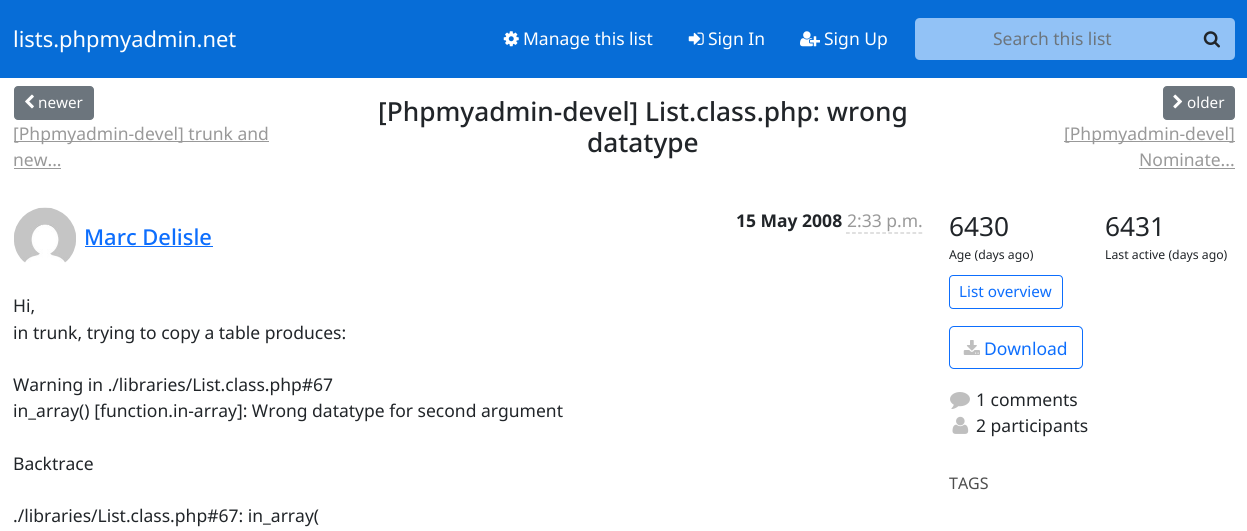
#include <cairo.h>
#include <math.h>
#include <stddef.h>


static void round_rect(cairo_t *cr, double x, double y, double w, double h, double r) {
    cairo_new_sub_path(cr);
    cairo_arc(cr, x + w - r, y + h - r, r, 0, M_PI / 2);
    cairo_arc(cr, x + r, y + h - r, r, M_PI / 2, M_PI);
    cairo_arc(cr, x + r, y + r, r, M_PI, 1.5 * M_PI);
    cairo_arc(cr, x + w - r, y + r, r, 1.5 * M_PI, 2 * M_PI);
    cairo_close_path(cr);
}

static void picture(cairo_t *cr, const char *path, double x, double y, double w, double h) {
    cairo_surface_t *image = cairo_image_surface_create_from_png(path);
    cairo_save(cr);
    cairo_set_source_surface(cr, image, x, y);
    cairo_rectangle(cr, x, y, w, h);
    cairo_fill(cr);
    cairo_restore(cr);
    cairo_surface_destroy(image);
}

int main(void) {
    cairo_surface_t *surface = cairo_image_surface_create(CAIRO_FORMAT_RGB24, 1247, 531);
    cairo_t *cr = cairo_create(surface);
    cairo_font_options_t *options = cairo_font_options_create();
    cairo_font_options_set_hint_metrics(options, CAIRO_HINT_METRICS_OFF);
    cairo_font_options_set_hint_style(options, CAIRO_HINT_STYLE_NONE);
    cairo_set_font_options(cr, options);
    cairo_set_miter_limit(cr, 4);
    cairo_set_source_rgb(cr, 1, 1, 1);
    cairo_paint(cr);
    cairo_set_source_rgb(cr, 0.031, 0.427, 0.843);
    cairo_rectangle(cr, 0, 0, 1247, 78);
    cairo_fill(cr);
    cairo_select_font_face(cr, "Noto Sans", CAIRO_FONT_SLANT_NORMAL, CAIRO_FONT_WEIGHT_NORMAL);
    cairo_set_font_size(cr, 21.9);
    cairo_set_source_rgb(cr, 1, 1, 1);
    cairo_move_to(cr, 13, 47);
    cairo_show_text(cr, "lists.phpmyadmin.net");
    picture(cr, "img1.png", 503, 31, 16, 16);
    cairo_set_font_size(cr, 17.5);
    cairo_move_to(cr, 523, 45);
    cairo_show_text(cr, "Manage this list");
    picture(cr, "img2.png", 688, 32, 16, 13);
    cairo_move_to(cr, 708, 45);
    cairo_show_text(cr, "Sign In");
    picture(cr, "img3.png", 800, 31, 20, 16);
    cairo_move_to(cr, 824, 45);
    cairo_show_text(cr, "Sign Up");
    cairo_set_source_rgb(cr, 0.573, 0.761, 0.961);
    cairo_new_path(cr);
    cairo_move_to(cr, 920, 18);
    cairo_line_to(cr, 1191, 18);
    cairo_line_to(cr, 1191, 60);
    cairo_line_to(cr, 920, 60);
    cairo_curve_to(cr, 917, 60, 915, 58, 915, 55);
    cairo_line_to(cr, 915, 23);
    cairo_curve_to(cr, 915, 20, 917, 18, 920, 18);
    cairo_close_path(cr);
    cairo_fill(cr);
    cairo_set_source_rgb(cr, 0.424, 0.459, 0.49);
    cairo_move_to(cr, 993, 45);
    cairo_show_text(cr, "Search this list");
    cairo_set_source_rgb(cr, 0.573, 0.761, 0.961);
    cairo_new_path(cr);
    cairo_move_to(cr, 1190, 18);
    cairo_line_to(cr, 1230, 18);
    cairo_curve_to(cr, 1233, 18, 1235, 20, 1235, 23);
    cairo_line_to(cr, 1235, 55);
    cairo_curve_to(cr, 1235, 58, 1233, 60, 1230, 60);
    cairo_line_to(cr, 1190, 60);
    cairo_close_path(cr);
    cairo_fill(cr);
    picture(cr, "img4.png", 1203, 31, 17, 17);
    cairo_set_source_rgb(cr, 0.424, 0.459, 0.49);
    round_rect(cr, 14.5, 86.5, 79, 33, 3.5);
    cairo_fill_preserve(cr);
    cairo_set_line_width(cr, 1);
    cairo_stroke(cr);
    picture(cr, "img5.png", 25, 94, 9, 15);
    cairo_set_font_size(cr, 15.25);
    cairo_set_source_rgb(cr, 1, 1, 1);
    cairo_move_to(cr, 38, 108);
    cairo_show_text(cr, "newer");
    cairo_set_source_rgb(cr, 0.6, 0.6, 0.6);
    cairo_rectangle(cr, 14, 141, 255, 1);
    cairo_fill(cr);
    cairo_set_font_size(cr, 17.5);
    cairo_move_to(cr, 13, 140);
    cairo_show_text(cr, "[Phpmyadmin-devel] trunk and");
    cairo_move_to(cr, 13, 166);
    cairo_show_text(cr, "new...");
    cairo_rectangle(cr, 14, 168, 47, 1);
    cairo_fill(cr);
    cairo_select_font_face(cr, "Noto Sans Medium", CAIRO_FONT_SLANT_NORMAL, CAIRO_FONT_WEIGHT_NORMAL);
    cairo_set_font_size(cr, 26.25);
    cairo_set_source_rgb(cr, 0.129, 0.145, 0.161);
    cairo_move_to(cr, 378, 121);
    cairo_show_text(cr, "[Phpmyadmin-devel] List.class.php: wrong");
    cairo_move_to(cr, 587, 152);
    cairo_show_text(cr, "datatype");
    cairo_set_source_rgb(cr, 0.424, 0.459, 0.49);
    round_rect(cr, 1163.5, 86.5, 71, 33, 3.5);
    cairo_fill_preserve(cr);
    cairo_stroke(cr);
    picture(cr, "img6.png", 1173, 94, 10, 15);
    cairo_select_font_face(cr, "Noto Sans", CAIRO_FONT_SLANT_NORMAL, CAIRO_FONT_WEIGHT_NORMAL);
    cairo_set_font_size(cr, 15.25);
    cairo_set_source_rgb(cr, 1, 1, 1);
    cairo_move_to(cr, 1187, 108);
    cairo_show_text(cr, "older");
    cairo_set_source_rgb(cr, 0.6, 0.6, 0.6);
    cairo_rectangle(cr, 1064, 141, 171, 1);
    cairo_fill(cr);
    cairo_set_font_size(cr, 17.5);
    cairo_move_to(cr, 1064, 140);
    cairo_show_text(cr, "[Phpmyadmin-devel]");
    cairo_move_to(cr, 1139, 166);
    cairo_show_text(cr, "Nominate...");
    cairo_rectangle(cr, 1139, 168, 96, 1);
    cairo_fill(cr);
    cairo_select_font_face(cr, "Noto Sans", CAIRO_FONT_SLANT_NORMAL, CAIRO_FONT_WEIGHT_BOLD);
    cairo_set_source_rgb(cr, 0.129, 0.145, 0.161);
    cairo_move_to(cr, 736, 227);
    cairo_show_text(cr, "15 May 2008");
    cairo_select_font_face(cr, "Noto Sans", CAIRO_FONT_SLANT_NORMAL, CAIRO_FONT_WEIGHT_NORMAL);
    cairo_set_source_rgb(cr, 0.6, 0.6, 0.6);
    cairo_move_to(cr, 847, 227);
    cairo_show_text(cr, "2:33 p.m.");
    cairo_new_path(cr);
    cairo_move_to(cr, 846, 233);
    cairo_line_to(cr, 922.5, 233);
    cairo_set_source_rgb(cr, 0.8, 0.8, 0.8);
    cairo_set_line_width(cr, 1.2);
    cairo_set_dash(cr, (double[]){3.75, 2.29}, 2, 0);
    cairo_stroke(cr);
    picture(cr, "img7.png", 14, 207, 62, 56);
    cairo_select_font_face(cr, "Noto Sans Medium", CAIRO_FONT_SLANT_NORMAL, CAIRO_FONT_WEIGHT_NORMAL);
    cairo_set_font_size(cr, 21.9);
    cairo_set_source_rgb(cr, 0.051, 0.431, 0.992);
    cairo_move_to(cr, 84, 245);
    cairo_show_text(cr, "Marc Delisle");
    cairo_rectangle(cr, 85, 246, 128, 1);
    cairo_fill(cr);
    cairo_select_font_face(cr, "Noto Sans", CAIRO_FONT_SLANT_NORMAL, CAIRO_FONT_WEIGHT_NORMAL);
    cairo_set_font_size(cr, 17.5);
    cairo_set_source_rgb(cr, 0.129, 0.145, 0.161);
    cairo_move_to(cr, 13, 312);
    cairo_show_text(cr, "Hi,");
    cairo_move_to(cr, 13, 339);
    cairo_show_text(cr, "in trunk, trying to copy a table produces:");
    cairo_move_to(cr, 13, 391);
    cairo_show_text(cr, "Warning in ./libraries/List.class.php#67");
    cairo_move_to(cr, 13, 417);
    cairo_show_text(cr, "in_array() [function.in-array]: Wrong datatype for second argument");
    cairo_move_to(cr, 13, 470);
    cairo_show_text(cr, "Backtrace");
    cairo_move_to(cr, 13, 522);
    cairo_show_text(cr, "./libraries/List.class.php#67: in_array(");
    cairo_set_font_size(cr, 26.25);
    cairo_move_to(cr, 949, 236);
    cairo_show_text(cr, "6430");
    cairo_set_font_size(cr, 12.25);
    cairo_move_to(cr, 949, 259);
    cairo_show_text(cr, "Age (days ago)");
    cairo_set_font_size(cr, 26.25);
    cairo_move_to(cr, 1105, 236);
    cairo_show_text(cr, "6431");
    cairo_set_font_size(cr, 12.25);
    cairo_move_to(cr, 1105, 259);
    cairo_show_text(cr, "Last active (days ago)");
    round_rect(cr, 949.5, 275.5, 113, 33, 3.5);
    cairo_set_source_rgb(cr, 0.051, 0.431, 0.992);
    cairo_set_line_width(cr, 1);
    cairo_set_dash(cr, NULL, 0, 0);
    cairo_stroke(cr);
    cairo_set_font_size(cr, 15.25);
    cairo_move_to(cr, 959, 297);
    cairo_show_text(cr, "List overview");
    round_rect(cr, 949.5, 326.5, 133, 42, 4.5);
    cairo_stroke(cr);
    picture(cr, "img8.png", 963, 340, 17, 15);
    cairo_set_font_size(cr, 17.5);
    cairo_move_to(cr, 984, 355);
    cairo_show_text(cr, "Download");
    picture(cr, "img9.png", 950, 392, 20, 17);
    cairo_set_source_rgb(cr, 0.129, 0.145, 0.161);
    cairo_move_to(cr, 976, 406);
    cairo_show_text(cr, "1 comments");
    picture(cr, "img10.png", 952, 416, 17, 18);
    cairo_move_to(cr, 976, 432);
    cairo_show_text(cr, "2 participants");
    cairo_set_font_size(cr, 16);
    cairo_set_source_rgb(cr, 0.302, 0.302, 0.302);
    cairo_move_to(cr, 949, 489);
    cairo_show_text(cr, "TAGS");
    cairo_surface_write_to_png(surface, "page.png");
    cairo_font_options_destroy(options);
    cairo_destroy(cr);
    cairo_surface_destroy(surface);
    return 0;
}
